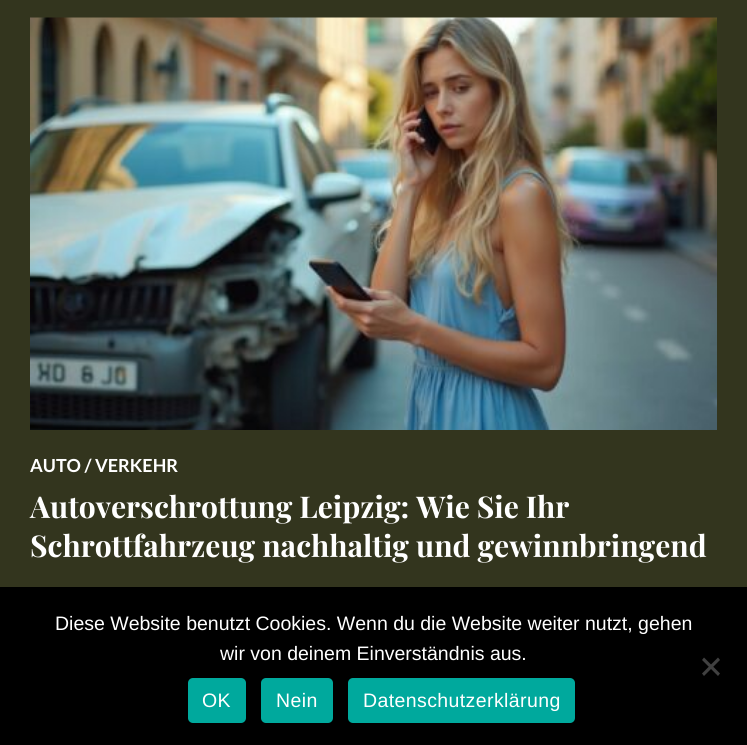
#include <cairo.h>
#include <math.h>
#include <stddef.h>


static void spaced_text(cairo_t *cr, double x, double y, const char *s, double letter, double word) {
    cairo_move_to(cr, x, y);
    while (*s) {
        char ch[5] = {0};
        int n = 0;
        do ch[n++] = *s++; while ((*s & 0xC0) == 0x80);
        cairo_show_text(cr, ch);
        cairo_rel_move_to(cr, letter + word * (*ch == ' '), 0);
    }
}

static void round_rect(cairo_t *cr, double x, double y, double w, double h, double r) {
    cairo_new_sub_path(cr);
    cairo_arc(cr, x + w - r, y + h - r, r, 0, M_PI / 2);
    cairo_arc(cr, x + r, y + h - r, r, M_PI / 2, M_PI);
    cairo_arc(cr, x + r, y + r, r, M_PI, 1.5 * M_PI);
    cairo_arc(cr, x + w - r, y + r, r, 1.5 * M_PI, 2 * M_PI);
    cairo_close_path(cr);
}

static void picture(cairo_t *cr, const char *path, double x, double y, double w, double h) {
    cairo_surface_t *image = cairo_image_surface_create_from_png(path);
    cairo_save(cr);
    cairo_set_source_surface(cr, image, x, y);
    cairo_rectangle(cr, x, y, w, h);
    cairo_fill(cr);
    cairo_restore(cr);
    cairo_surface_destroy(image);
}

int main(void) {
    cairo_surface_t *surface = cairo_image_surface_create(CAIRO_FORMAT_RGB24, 747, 745);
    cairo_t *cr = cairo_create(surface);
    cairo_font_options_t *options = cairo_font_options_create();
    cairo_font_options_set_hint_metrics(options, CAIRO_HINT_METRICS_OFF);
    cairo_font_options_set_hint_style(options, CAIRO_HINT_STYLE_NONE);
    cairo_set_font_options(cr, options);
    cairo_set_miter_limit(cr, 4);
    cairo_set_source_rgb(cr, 0.2, 0.208, 0.118);
    cairo_paint(cr);
    picture(cr, "img1.png", 30, 17, 687, 413);
    cairo_select_font_face(cr, "Lato", CAIRO_FONT_SLANT_NORMAL, CAIRO_FONT_WEIGHT_BOLD);
    cairo_set_font_size(cr, 18);
    cairo_set_source_rgb(cr, 1, 1, 1);
    cairo_move_to(cr, 30, 472);
    cairo_show_text(cr, "AUTO / VERKEHR");
    cairo_select_font_face(cr, "Playfair Display", CAIRO_FONT_SLANT_NORMAL, CAIRO_FONT_WEIGHT_BOLD);
    cairo_set_font_size(cr, 30);
    cairo_move_to(cr, 30, 518);
    cairo_show_text(cr, "Autoverschrottung Leipzig: Wie Sie Ihr");
    cairo_move_to(cr, 30, 557);
    cairo_show_text(cr, "Schrottfahrzeug nachhaltig und gewinnbringend");
    cairo_set_source_rgb(cr, 0, 0, 0);
    cairo_rectangle(cr, 0, 587, 747, 158);
    cairo_fill(cr);
    cairo_select_font_face(cr, "Liberation Sans", CAIRO_FONT_SLANT_NORMAL, CAIRO_FONT_WEIGHT_NORMAL);
    cairo_set_font_size(cr, 19.5);
    cairo_set_source_rgb(cr, 1, 1, 1);
    cairo_move_to(cr, 55, 630);
    cairo_show_text(cr, "Diese Website benutzt Cookies. Wenn du die Website weiter nutzt, gehen");
    cairo_move_to(cr, 220, 660);
    cairo_show_text(cr, "wir von deinem Einverständnis aus.");
    cairo_set_source_rgb(cr, 0.251, 0.251, 0.251);
    cairo_new_path(cr);
    cairo_move_to(cr, 718, 657.5);
    cairo_line_to(cr, 720, 660);
    cairo_line_to(cr, 704, 676);
    cairo_line_to(cr, 702, 673.5);
    cairo_close_path(cr);
    cairo_fill(cr);
    cairo_new_path(cr);
    cairo_move_to(cr, 702, 660);
    cairo_line_to(cr, 704, 657.5);
    cairo_line_to(cr, 720, 673.5);
    cairo_line_to(cr, 718, 676);
    cairo_close_path(cr);
    cairo_fill(cr);
    cairo_set_source_rgb(cr, 0, 0.663, 0.616);
    round_rect(cr, 188, 678, 58, 45, 5);
    cairo_fill(cr);
    cairo_set_source_rgb(cr, 1, 1, 1);
    spaced_text(cr, 202, 707, "OK", 0.4, 0);
    cairo_set_source_rgb(cr, 0, 0.663, 0.616);
    round_rect(cr, 261, 678, 72, 45, 5);
    cairo_fill(cr);
    cairo_set_source_rgb(cr, 1, 1, 1);
    spaced_text(cr, 276, 707, "Nein", 0.4, 0);
    cairo_set_source_rgb(cr, 0, 0.663, 0.616);
    round_rect(cr, 348, 678, 227, 45, 5);
    cairo_fill(cr);
    cairo_set_source_rgb(cr, 1, 1, 1);
    spaced_text(cr, 363, 707, "Datenschutzerklärung", 0.4, 0);
    cairo_surface_write_to_png(surface, "page.png");
    cairo_font_options_destroy(options);
    cairo_destroy(cr);
    cairo_surface_destroy(surface);
    return 0;
}
